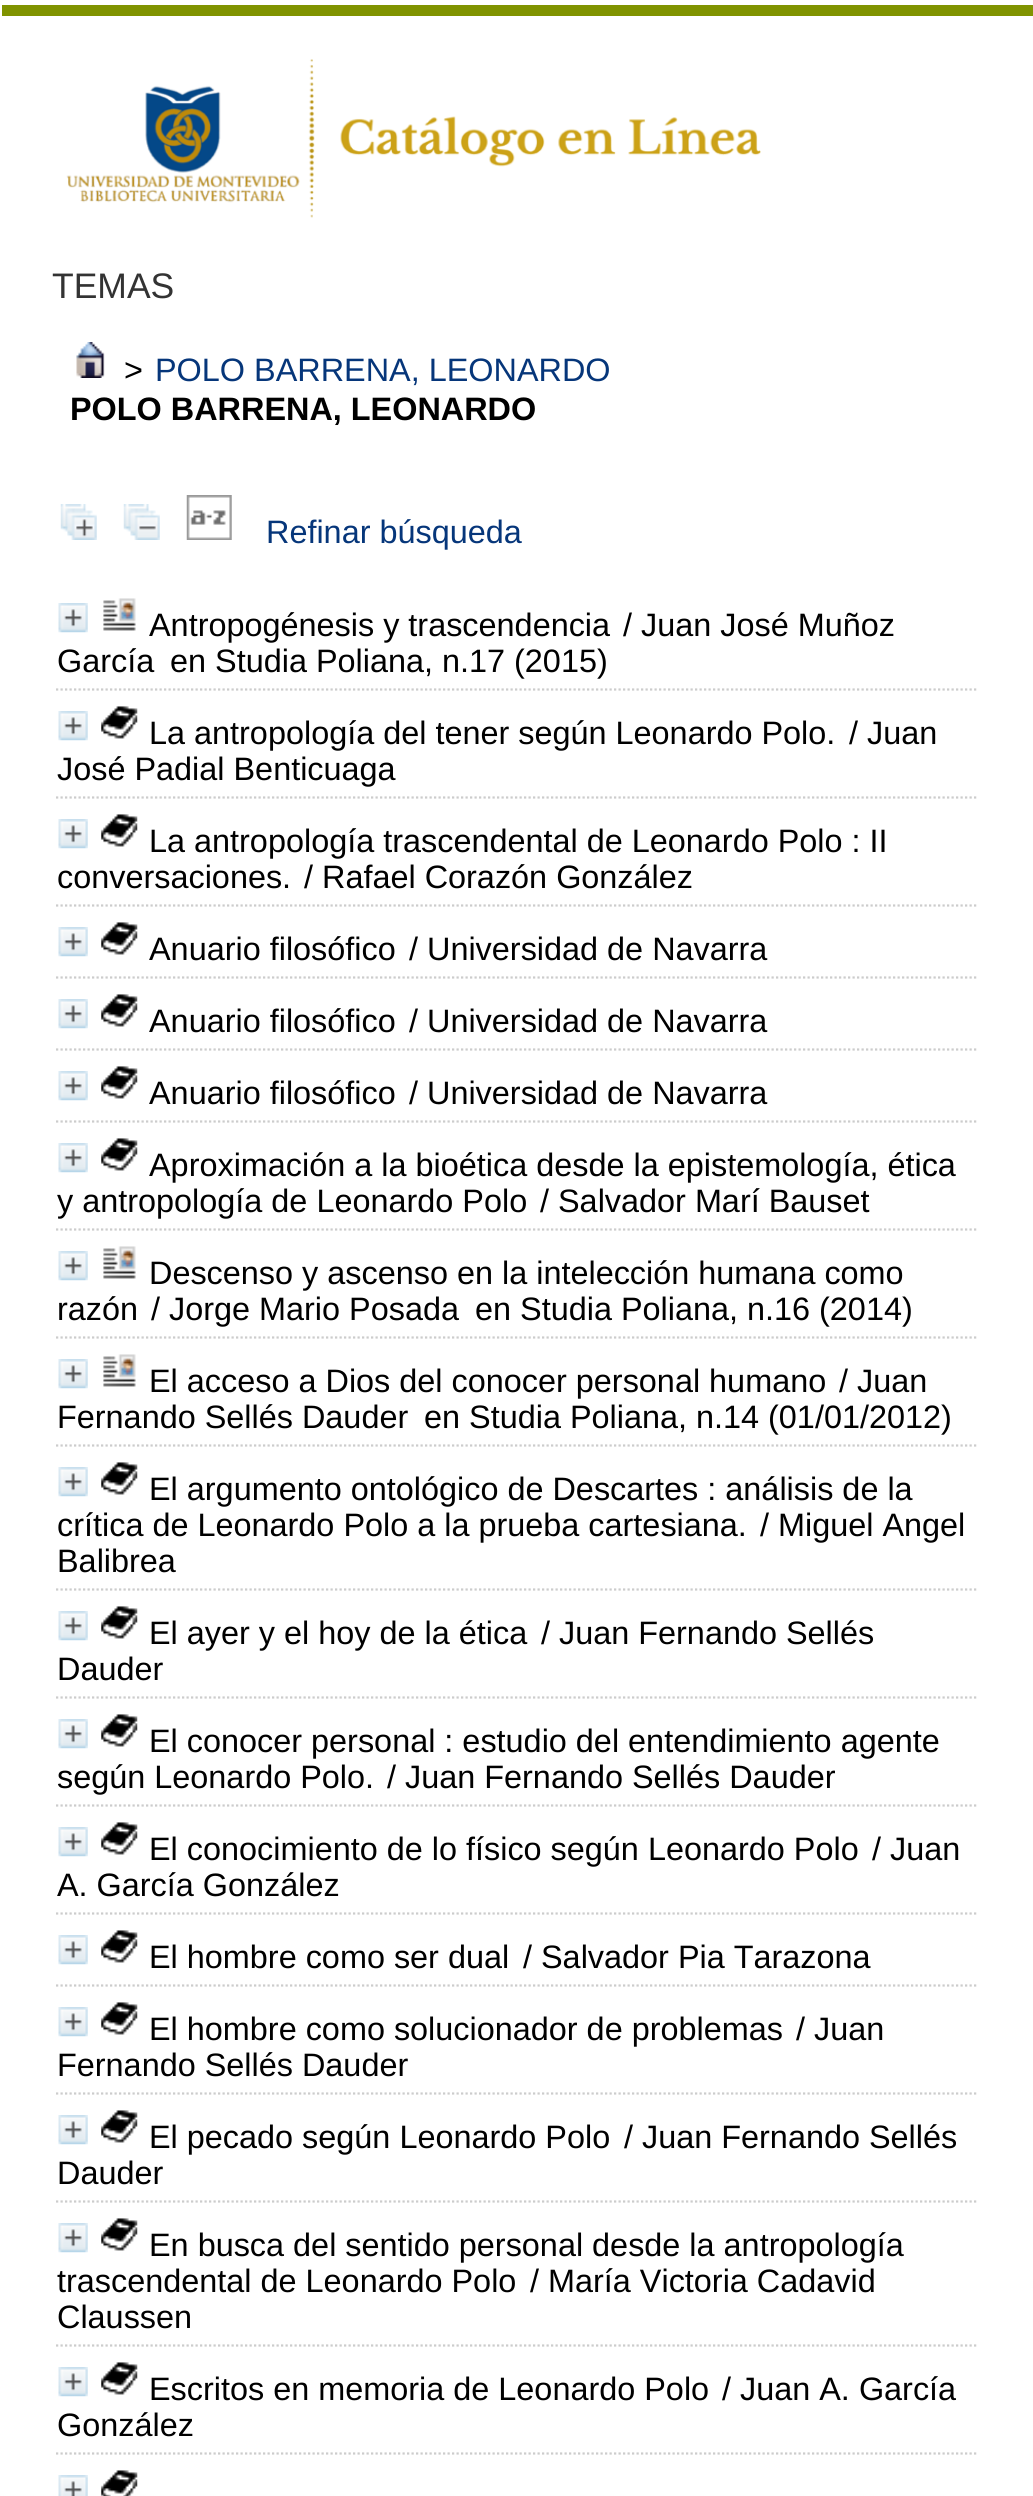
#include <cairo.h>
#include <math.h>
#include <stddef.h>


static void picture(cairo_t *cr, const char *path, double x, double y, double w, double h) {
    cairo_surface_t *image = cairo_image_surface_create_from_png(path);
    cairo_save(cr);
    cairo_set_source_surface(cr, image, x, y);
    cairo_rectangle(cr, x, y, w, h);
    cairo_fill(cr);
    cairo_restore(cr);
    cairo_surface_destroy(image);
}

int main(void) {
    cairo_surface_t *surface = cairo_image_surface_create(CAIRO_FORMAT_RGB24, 1033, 2496);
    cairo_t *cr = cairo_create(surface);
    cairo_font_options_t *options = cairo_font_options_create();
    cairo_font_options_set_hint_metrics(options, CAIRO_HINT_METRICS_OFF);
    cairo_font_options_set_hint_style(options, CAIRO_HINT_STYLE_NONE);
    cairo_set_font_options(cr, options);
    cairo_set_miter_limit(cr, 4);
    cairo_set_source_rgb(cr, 1, 1, 1);
    cairo_paint(cr);
    cairo_set_source_rgb(cr, 0.502, 0.576, 0);
    cairo_rectangle(cr, 2, 5, 1031, 11);
    cairo_fill(cr);
    picture(cr, "img1.png", 66, 59, 695, 159);
    cairo_select_font_face(cr, "Liberation Sans", CAIRO_FONT_SLANT_NORMAL, CAIRO_FONT_WEIGHT_NORMAL);
    cairo_set_font_size(cr, 35.5);
    cairo_set_source_rgb(cr, 0.2, 0.2, 0.2);
    cairo_move_to(cr, 52, 298);
    cairo_show_text(cr, "TEMAS");
    picture(cr, "img2.png", 76, 342, 29, 36);
    cairo_set_font_size(cr, 32.4);
    cairo_set_source_rgb(cr, 0, 0, 0);
    cairo_move_to(cr, 124, 381);
    cairo_show_text(cr, ">");
    cairo_set_source_rgb(cr, 0.024, 0.212, 0.478);
    cairo_move_to(cr, 155, 381);
    cairo_show_text(cr, "POLO BARRENA, LEONARDO");
    cairo_select_font_face(cr, "Liberation Sans", CAIRO_FONT_SLANT_NORMAL, CAIRO_FONT_WEIGHT_BOLD);
    cairo_set_source_rgb(cr, 0, 0, 0);
    cairo_move_to(cr, 70, 420);
    cairo_show_text(cr, "POLO BARRENA, LEONARDO");
    picture(cr, "img3.png", 60, 504, 37, 36);
    picture(cr, "img4.png", 123, 504, 37, 36);
    picture(cr, "img5.png", 186, 495, 46, 45);
    cairo_select_font_face(cr, "Liberation Sans", CAIRO_FONT_SLANT_NORMAL, CAIRO_FONT_WEIGHT_NORMAL);
    cairo_set_source_rgb(cr, 0.024, 0.212, 0.478);
    cairo_move_to(cr, 266, 543);
    cairo_show_text(cr, "Refinar búsqueda");
    cairo_new_path(cr);
    cairo_move_to(cr, 56, 689.5);
    cairo_line_to(cr, 976.5, 689.5);
    cairo_set_source_rgb(cr, 0.8, 0.8, 0.8);
    cairo_set_line_width(cr, 2.2);
    cairo_set_dash(cr, (double[]){2.25, 2.25}, 2, 0);
    cairo_stroke(cr);
    picture(cr, "img6.png", 58, 603, 30, 30);
    picture(cr, "img7.png", 103, 598, 33, 33);
    cairo_set_source_rgb(cr, 0, 0, 0);
    cairo_move_to(cr, 149, 636);
    cairo_show_text(cr, "Antropogénesis y trascendencia");
    cairo_move_to(cr, 623, 636);
    cairo_show_text(cr, "/ Juan José Muñoz");
    cairo_move_to(cr, 57, 672);
    cairo_show_text(cr, "García");
    cairo_move_to(cr, 170, 672);
    cairo_show_text(cr, "en Studia Poliana, n.17 (2015)");
    cairo_new_path(cr);
    cairo_move_to(cr, 56, 797.5);
    cairo_line_to(cr, 976.5, 797.5);
    cairo_set_source_rgb(cr, 0.8, 0.8, 0.8);
    cairo_stroke(cr);
    picture(cr, "img6.png", 58, 711, 30, 30);
    picture(cr, "img8.png", 101, 706, 37, 33);
    cairo_set_source_rgb(cr, 0, 0, 0);
    cairo_move_to(cr, 149, 744);
    cairo_show_text(cr, "La antropología del tener según Leonardo Polo.");
    cairo_move_to(cr, 849, 744);
    cairo_show_text(cr, "/ Juan");
    cairo_move_to(cr, 57, 780);
    cairo_show_text(cr, "José Padial Benticuaga");
    cairo_new_path(cr);
    cairo_move_to(cr, 56, 905.5);
    cairo_line_to(cr, 976.5, 905.5);
    cairo_set_source_rgb(cr, 0.8, 0.8, 0.8);
    cairo_stroke(cr);
    picture(cr, "img9.png", 58, 819, 30, 30);
    picture(cr, "img10.png", 101, 814, 37, 33);
    cairo_set_source_rgb(cr, 0, 0, 0);
    cairo_move_to(cr, 149, 852);
    cairo_show_text(cr, "La antropología trascendental de Leonardo Polo : II");
    cairo_move_to(cr, 57, 888);
    cairo_show_text(cr, "conversaciones.");
    cairo_move_to(cr, 304, 888);
    cairo_show_text(cr, "/ Rafael Corazón González");
    cairo_new_path(cr);
    cairo_move_to(cr, 56, 977.5);
    cairo_line_to(cr, 976.5, 977.5);
    cairo_set_source_rgb(cr, 0.8, 0.8, 0.8);
    cairo_stroke(cr);
    picture(cr, "img6.png", 58, 927, 30, 30);
    picture(cr, "img8.png", 101, 922, 37, 33);
    cairo_set_source_rgb(cr, 0, 0, 0);
    cairo_move_to(cr, 149, 960);
    cairo_show_text(cr, "Anuario filosófico");
    cairo_move_to(cr, 409, 960);
    cairo_show_text(cr, "/ Universidad de Navarra");
    cairo_new_path(cr);
    cairo_move_to(cr, 56, 1049.5);
    cairo_line_to(cr, 976.5, 1049.5);
    cairo_set_source_rgb(cr, 0.8, 0.8, 0.8);
    cairo_stroke(cr);
    picture(cr, "img6.png", 58, 999, 30, 30);
    picture(cr, "img8.png", 101, 994, 37, 33);
    cairo_set_source_rgb(cr, 0, 0, 0);
    cairo_move_to(cr, 149, 1032);
    cairo_show_text(cr, "Anuario filosófico");
    cairo_move_to(cr, 409, 1032);
    cairo_show_text(cr, "/ Universidad de Navarra");
    cairo_new_path(cr);
    cairo_move_to(cr, 56, 1121.5);
    cairo_line_to(cr, 976.5, 1121.5);
    cairo_set_source_rgb(cr, 0.8, 0.8, 0.8);
    cairo_stroke(cr);
    picture(cr, "img6.png", 58, 1071, 30, 30);
    picture(cr, "img8.png", 101, 1066, 37, 33);
    cairo_set_source_rgb(cr, 0, 0, 0);
    cairo_move_to(cr, 149, 1104);
    cairo_show_text(cr, "Anuario filosófico");
    cairo_move_to(cr, 409, 1104);
    cairo_show_text(cr, "/ Universidad de Navarra");
    cairo_new_path(cr);
    cairo_move_to(cr, 56, 1229.5);
    cairo_line_to(cr, 976.5, 1229.5);
    cairo_set_source_rgb(cr, 0.8, 0.8, 0.8);
    cairo_stroke(cr);
    picture(cr, "img9.png", 58, 1143, 30, 30);
    picture(cr, "img10.png", 101, 1138, 37, 33);
    cairo_set_source_rgb(cr, 0, 0, 0);
    cairo_move_to(cr, 149, 1176);
    cairo_show_text(cr, "Aproximación a la bioética desde la epistemología, ética");
    cairo_move_to(cr, 57, 1212);
    cairo_show_text(cr, "y antropología de Leonardo Polo");
    cairo_move_to(cr, 540, 1212);
    cairo_show_text(cr, "/ Salvador Marí Bauset");
    cairo_new_path(cr);
    cairo_move_to(cr, 56, 1337.5);
    cairo_line_to(cr, 976.5, 1337.5);
    cairo_set_source_rgb(cr, 0.8, 0.8, 0.8);
    cairo_stroke(cr);
    picture(cr, "img6.png", 58, 1251, 30, 30);
    picture(cr, "img7.png", 103, 1246, 33, 33);
    cairo_set_source_rgb(cr, 0, 0, 0);
    cairo_move_to(cr, 149, 1284);
    cairo_show_text(cr, "Descenso y ascenso en la intelección humana como");
    cairo_move_to(cr, 57, 1320);
    cairo_show_text(cr, "razón");
    cairo_move_to(cr, 151, 1320);
    cairo_show_text(cr, "/ Jorge Mario Posada");
    cairo_move_to(cr, 475, 1320);
    cairo_show_text(cr, "en Studia Poliana, n.16 (2014)");
    cairo_new_path(cr);
    cairo_move_to(cr, 56, 1445.5);
    cairo_line_to(cr, 976.5, 1445.5);
    cairo_set_source_rgb(cr, 0.8, 0.8, 0.8);
    cairo_stroke(cr);
    picture(cr, "img6.png", 58, 1359, 30, 30);
    picture(cr, "img7.png", 103, 1354, 33, 33);
    cairo_set_source_rgb(cr, 0, 0, 0);
    cairo_move_to(cr, 149, 1392);
    cairo_show_text(cr, "El acceso a Dios del conocer personal humano");
    cairo_move_to(cr, 839, 1392);
    cairo_show_text(cr, "/ Juan");
    cairo_move_to(cr, 57, 1428);
    cairo_show_text(cr, "Fernando Sellés Dauder");
    cairo_move_to(cr, 424, 1428);
    cairo_show_text(cr, "en Studia Poliana, n.14 (01/01/2012)");
    cairo_new_path(cr);
    cairo_move_to(cr, 56, 1589.5);
    cairo_line_to(cr, 976.5, 1589.5);
    cairo_set_source_rgb(cr, 0.8, 0.8, 0.8);
    cairo_stroke(cr);
    picture(cr, "img6.png", 58, 1467, 30, 30);
    picture(cr, "img8.png", 101, 1462, 37, 33);
    cairo_set_source_rgb(cr, 0, 0, 0);
    cairo_move_to(cr, 149, 1500);
    cairo_show_text(cr, "El argumento ontológico de Descartes : análisis de la");
    cairo_move_to(cr, 57, 1536);
    cairo_show_text(cr, "crítica de Leonardo Polo a la prueba cartesiana.");
    cairo_move_to(cr, 760, 1536);
    cairo_show_text(cr, "/ Miguel Angel");
    cairo_move_to(cr, 57, 1572);
    cairo_show_text(cr, "Balibrea");
    cairo_new_path(cr);
    cairo_move_to(cr, 56, 1697.5);
    cairo_line_to(cr, 976.5, 1697.5);
    cairo_set_source_rgb(cr, 0.8, 0.8, 0.8);
    cairo_stroke(cr);
    picture(cr, "img6.png", 58, 1611, 30, 30);
    picture(cr, "img8.png", 101, 1606, 37, 33);
    cairo_set_source_rgb(cr, 0, 0, 0);
    cairo_move_to(cr, 149, 1644);
    cairo_show_text(cr, "El ayer y el hoy de la ética");
    cairo_move_to(cr, 541, 1644);
    cairo_show_text(cr, "/ Juan Fernando Sellés");
    cairo_move_to(cr, 57, 1680);
    cairo_show_text(cr, "Dauder");
    cairo_new_path(cr);
    cairo_move_to(cr, 56, 1805.5);
    cairo_line_to(cr, 976.5, 1805.5);
    cairo_set_source_rgb(cr, 0.8, 0.8, 0.8);
    cairo_stroke(cr);
    picture(cr, "img6.png", 58, 1719, 30, 30);
    picture(cr, "img8.png", 101, 1714, 37, 33);
    cairo_set_source_rgb(cr, 0, 0, 0);
    cairo_move_to(cr, 149, 1752);
    cairo_show_text(cr, "El conocer personal : estudio del entendimiento agente");
    cairo_move_to(cr, 57, 1788);
    cairo_show_text(cr, "según Leonardo Polo.");
    cairo_move_to(cr, 387, 1788);
    cairo_show_text(cr, "/ Juan Fernando Sellés Dauder");
    cairo_new_path(cr);
    cairo_move_to(cr, 56, 1913.5);
    cairo_line_to(cr, 976.5, 1913.5);
    cairo_set_source_rgb(cr, 0.8, 0.8, 0.8);
    cairo_stroke(cr);
    picture(cr, "img6.png", 58, 1827, 30, 30);
    picture(cr, "img8.png", 101, 1822, 37, 33);
    cairo_set_source_rgb(cr, 0, 0, 0);
    cairo_move_to(cr, 149, 1860);
    cairo_show_text(cr, "El conocimiento de lo físico según Leonardo Polo");
    cairo_move_to(cr, 872, 1860);
    cairo_show_text(cr, "/ Juan");
    cairo_move_to(cr, 57, 1896);
    cairo_show_text(cr, "A. García González");
    cairo_new_path(cr);
    cairo_move_to(cr, 56, 1985.5);
    cairo_line_to(cr, 976.5, 1985.5);
    cairo_set_source_rgb(cr, 0.8, 0.8, 0.8);
    cairo_stroke(cr);
    picture(cr, "img6.png", 58, 1935, 30, 30);
    picture(cr, "img8.png", 101, 1930, 37, 33);
    cairo_set_source_rgb(cr, 0, 0, 0);
    cairo_move_to(cr, 149, 1968);
    cairo_show_text(cr, "El hombre como ser dual");
    cairo_move_to(cr, 523, 1968);
    cairo_show_text(cr, "/ Salvador Pia Tarazona");
    cairo_new_path(cr);
    cairo_move_to(cr, 56, 2093.5);
    cairo_line_to(cr, 976.5, 2093.5);
    cairo_set_source_rgb(cr, 0.8, 0.8, 0.8);
    cairo_stroke(cr);
    picture(cr, "img6.png", 58, 2007, 30, 30);
    picture(cr, "img8.png", 101, 2002, 37, 33);
    cairo_set_source_rgb(cr, 0, 0, 0);
    cairo_move_to(cr, 149, 2040);
    cairo_show_text(cr, "El hombre como solucionador de problemas");
    cairo_move_to(cr, 796, 2040);
    cairo_show_text(cr, "/ Juan");
    cairo_move_to(cr, 57, 2076);
    cairo_show_text(cr, "Fernando Sellés Dauder");
    cairo_new_path(cr);
    cairo_move_to(cr, 56, 2201.5);
    cairo_line_to(cr, 976.5, 2201.5);
    cairo_set_source_rgb(cr, 0.8, 0.8, 0.8);
    cairo_stroke(cr);
    picture(cr, "img6.png", 58, 2115, 30, 30);
    picture(cr, "img8.png", 101, 2110, 37, 33);
    cairo_set_source_rgb(cr, 0, 0, 0);
    cairo_move_to(cr, 149, 2148);
    cairo_show_text(cr, "El pecado según Leonardo Polo");
    cairo_move_to(cr, 624, 2148);
    cairo_show_text(cr, "/ Juan Fernando Sellés");
    cairo_move_to(cr, 57, 2184);
    cairo_show_text(cr, "Dauder");
    cairo_new_path(cr);
    cairo_move_to(cr, 56, 2345.5);
    cairo_line_to(cr, 976.5, 2345.5);
    cairo_set_source_rgb(cr, 0.8, 0.8, 0.8);
    cairo_stroke(cr);
    picture(cr, "img6.png", 58, 2223, 30, 30);
    picture(cr, "img8.png", 101, 2218, 37, 33);
    cairo_set_source_rgb(cr, 0, 0, 0);
    cairo_move_to(cr, 149, 2256);
    cairo_show_text(cr, "En busca del sentido personal desde la antropología");
    cairo_move_to(cr, 57, 2292);
    cairo_show_text(cr, "trascendental de Leonardo Polo");
    cairo_move_to(cr, 530, 2292);
    cairo_show_text(cr, "/ María Victoria Cadavid");
    cairo_move_to(cr, 57, 2328);
    cairo_show_text(cr, "Claussen");
    cairo_new_path(cr);
    cairo_move_to(cr, 56, 2453.5);
    cairo_line_to(cr, 976.5, 2453.5);
    cairo_set_source_rgb(cr, 0.8, 0.8, 0.8);
    cairo_stroke(cr);
    picture(cr, "img6.png", 58, 2367, 30, 30);
    picture(cr, "img8.png", 101, 2362, 37, 33);
    cairo_set_source_rgb(cr, 0, 0, 0);
    cairo_move_to(cr, 149, 2400);
    cairo_show_text(cr, "Escritos en memoria de Leonardo Polo");
    cairo_move_to(cr, 722, 2400);
    cairo_show_text(cr, "/ Juan A. García");
    cairo_move_to(cr, 57, 2436);
    cairo_show_text(cr, "González");
    picture(cr, "img11.png", 58, 2475, 30, 21);
    picture(cr, "img12.png", 101, 2470, 37, 26);
    cairo_surface_write_to_png(surface, "page.png");
    cairo_font_options_destroy(options);
    cairo_destroy(cr);
    cairo_surface_destroy(surface);
    return 0;
}
